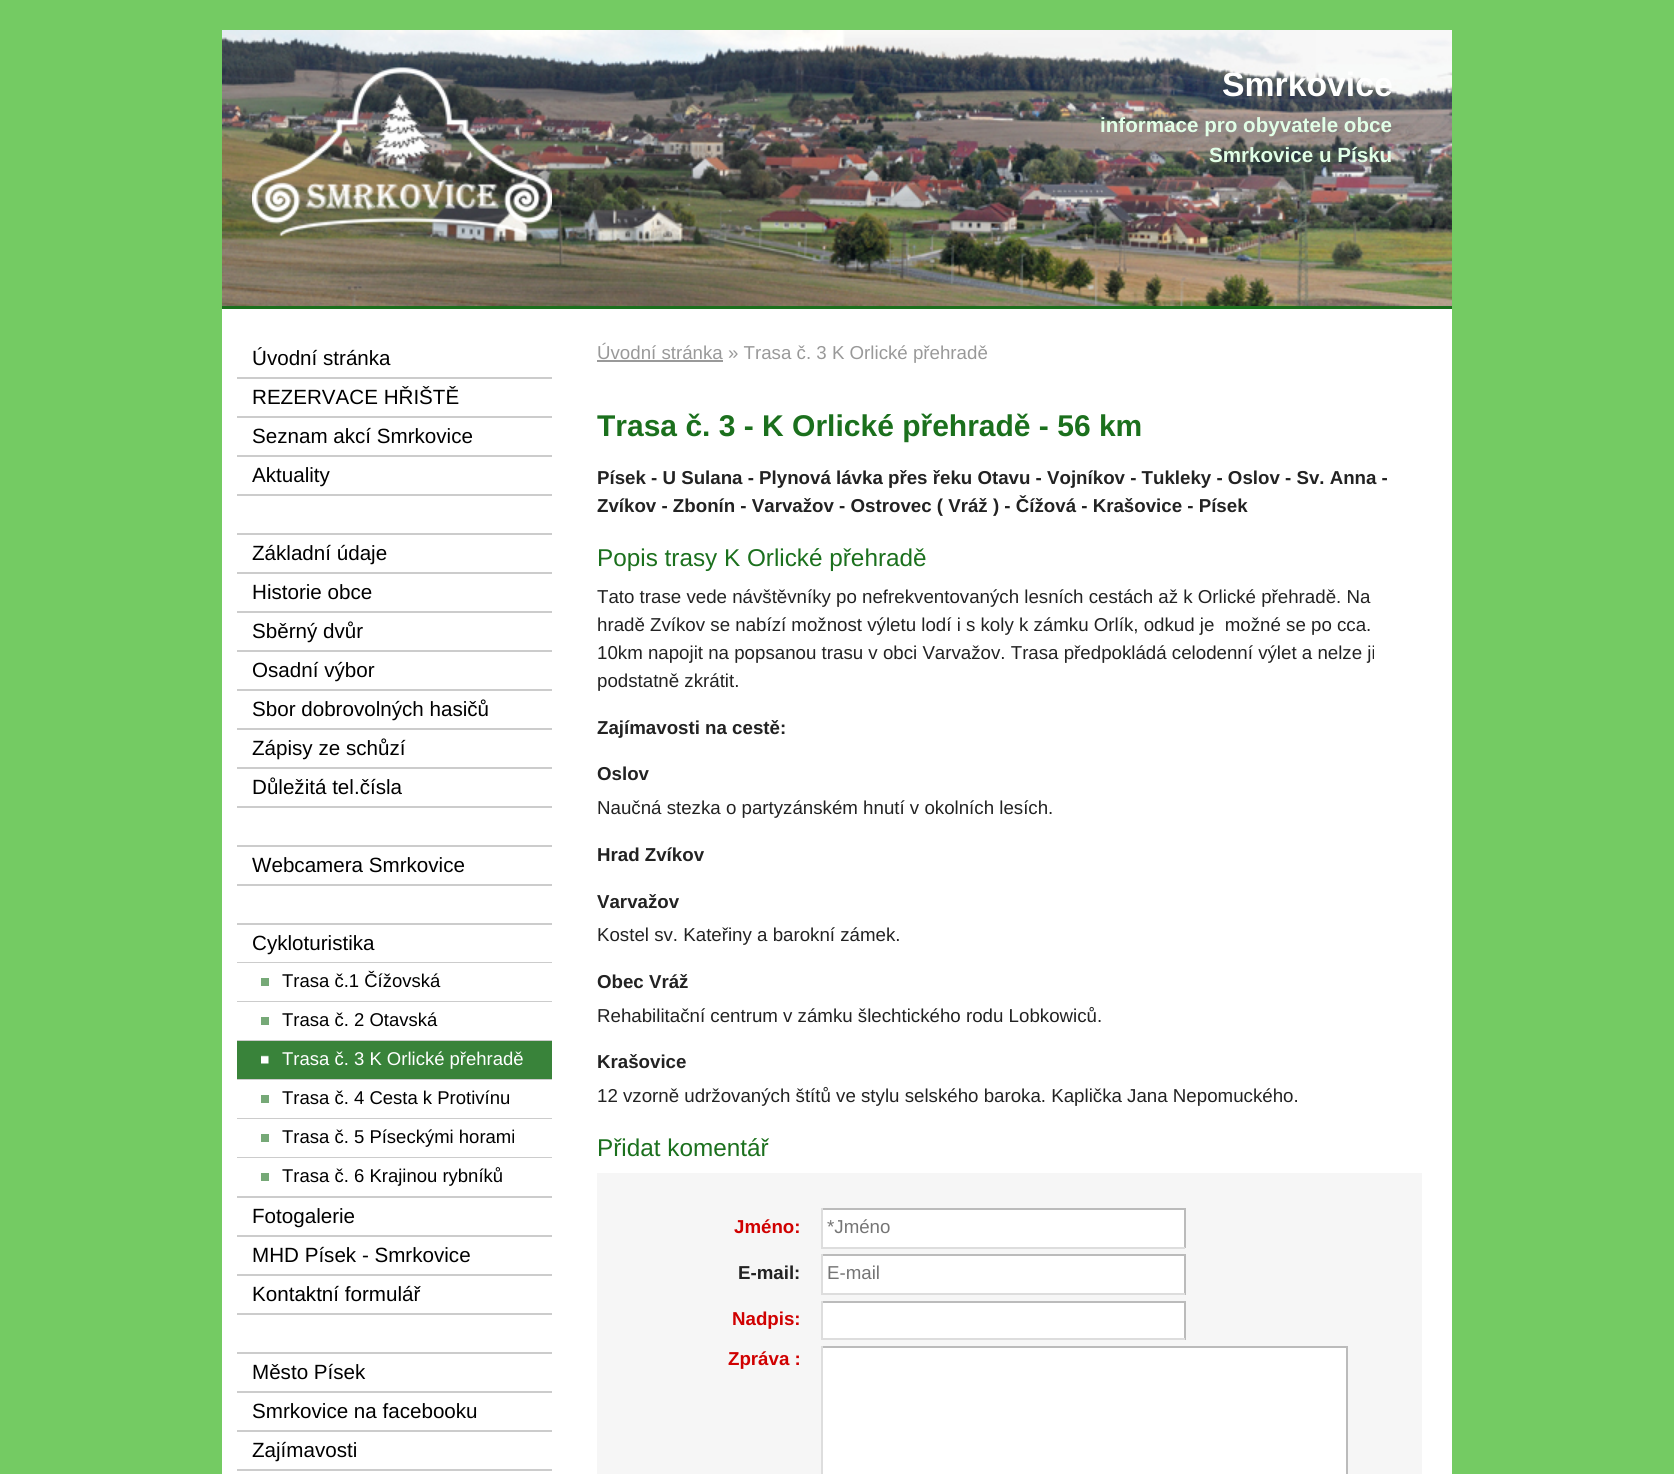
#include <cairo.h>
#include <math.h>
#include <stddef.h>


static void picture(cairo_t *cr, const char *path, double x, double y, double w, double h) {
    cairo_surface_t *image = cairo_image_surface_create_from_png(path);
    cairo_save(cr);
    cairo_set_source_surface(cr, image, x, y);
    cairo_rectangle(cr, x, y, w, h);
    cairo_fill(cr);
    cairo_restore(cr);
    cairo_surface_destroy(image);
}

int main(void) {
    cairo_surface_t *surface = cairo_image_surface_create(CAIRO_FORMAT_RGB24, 1674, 1474);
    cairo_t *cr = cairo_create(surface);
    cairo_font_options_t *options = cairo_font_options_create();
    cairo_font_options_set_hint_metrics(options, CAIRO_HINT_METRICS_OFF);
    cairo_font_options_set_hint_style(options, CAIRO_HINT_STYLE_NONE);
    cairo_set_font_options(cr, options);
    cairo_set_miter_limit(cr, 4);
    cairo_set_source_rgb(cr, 0.455, 0.796, 0.388);
    cairo_paint(cr);
    cairo_set_source_rgb(cr, 1, 1, 1);
    cairo_rectangle(cr, 222, 309, 1230, 1165);
    cairo_fill(cr);
    picture(cr, "img2.png", 222, 30, 1230, 276);
    picture(cr, "img1.png", 252, 67, 300, 170);
    cairo_set_source_rgb(cr, 0.106, 0.439, 0.114);
    cairo_rectangle(cr, 222, 306, 1230, 3);
    cairo_fill(cr);
    cairo_select_font_face(cr, "Liberation Sans", CAIRO_FONT_SLANT_NORMAL, CAIRO_FONT_WEIGHT_BOLD);
    cairo_set_font_size(cr, 33.75);
    cairo_set_source_rgb(cr, 1, 1, 1);
    cairo_move_to(cr, 1222, 96);
    cairo_show_text(cr, "Smrkovice");
    cairo_set_font_size(cr, 20.6);
    cairo_set_source_rgb(cr, 0.882, 1, 0.906);
    cairo_move_to(cr, 1100, 132);
    cairo_show_text(cr, "informace pro obyvatele obce");
    cairo_move_to(cr, 1209, 162);
    cairo_show_text(cr, "Smrkovice u Písku");
    cairo_set_source_rgb(cr, 0.8, 0.8, 0.8);
    cairo_rectangle(cr, 237, 377, 315, 2);
    cairo_fill(cr);
    cairo_select_font_face(cr, "Liberation Sans", CAIRO_FONT_SLANT_NORMAL, CAIRO_FONT_WEIGHT_NORMAL);
    cairo_set_source_rgb(cr, 0, 0, 0);
    cairo_move_to(cr, 252, 365);
    cairo_show_text(cr, "Úvodní stránka");
    cairo_set_source_rgb(cr, 0.8, 0.8, 0.8);
    cairo_rectangle(cr, 237, 416, 315, 2);
    cairo_fill(cr);
    cairo_set_source_rgb(cr, 0, 0, 0);
    cairo_move_to(cr, 252, 404);
    cairo_show_text(cr, "REZERVACE HŘIŠTĚ");
    cairo_set_source_rgb(cr, 0.8, 0.8, 0.8);
    cairo_rectangle(cr, 237, 455, 315, 2);
    cairo_fill(cr);
    cairo_set_source_rgb(cr, 0, 0, 0);
    cairo_move_to(cr, 252, 443);
    cairo_show_text(cr, "Seznam akcí Smrkovice");
    cairo_set_source_rgb(cr, 0.8, 0.8, 0.8);
    cairo_rectangle(cr, 237, 494, 315, 2);
    cairo_fill(cr);
    cairo_set_source_rgb(cr, 0, 0, 0);
    cairo_move_to(cr, 252, 482);
    cairo_show_text(cr, "Aktuality");
    cairo_set_source_rgb(cr, 0.8, 0.8, 0.8);
    cairo_rectangle(cr, 237, 533, 315, 2);
    cairo_fill(cr);
    cairo_rectangle(cr, 237, 572, 315, 2);
    cairo_fill(cr);
    cairo_set_source_rgb(cr, 0, 0, 0);
    cairo_move_to(cr, 252, 560);
    cairo_show_text(cr, "Základní údaje");
    cairo_set_source_rgb(cr, 0.8, 0.8, 0.8);
    cairo_rectangle(cr, 237, 611, 315, 2);
    cairo_fill(cr);
    cairo_set_source_rgb(cr, 0, 0, 0);
    cairo_move_to(cr, 252, 599);
    cairo_show_text(cr, "Historie obce");
    cairo_set_source_rgb(cr, 0.8, 0.8, 0.8);
    cairo_rectangle(cr, 237, 650, 315, 2);
    cairo_fill(cr);
    cairo_set_source_rgb(cr, 0, 0, 0);
    cairo_move_to(cr, 252, 638);
    cairo_show_text(cr, "Sběrný dvůr");
    cairo_set_source_rgb(cr, 0.8, 0.8, 0.8);
    cairo_rectangle(cr, 237, 689, 315, 2);
    cairo_fill(cr);
    cairo_set_source_rgb(cr, 0, 0, 0);
    cairo_move_to(cr, 252, 677);
    cairo_show_text(cr, "Osadní výbor");
    cairo_set_source_rgb(cr, 0.8, 0.8, 0.8);
    cairo_rectangle(cr, 237, 728, 315, 2);
    cairo_fill(cr);
    cairo_set_source_rgb(cr, 0, 0, 0);
    cairo_move_to(cr, 252, 716);
    cairo_show_text(cr, "Sbor dobrovolných hasičů");
    cairo_set_source_rgb(cr, 0.8, 0.8, 0.8);
    cairo_rectangle(cr, 237, 767, 315, 2);
    cairo_fill(cr);
    cairo_set_source_rgb(cr, 0, 0, 0);
    cairo_move_to(cr, 252, 755);
    cairo_show_text(cr, "Zápisy ze schůzí");
    cairo_set_source_rgb(cr, 0.8, 0.8, 0.8);
    cairo_rectangle(cr, 237, 806, 315, 2);
    cairo_fill(cr);
    cairo_set_source_rgb(cr, 0, 0, 0);
    cairo_move_to(cr, 252, 794);
    cairo_show_text(cr, "Důležitá tel.čísla");
    cairo_set_source_rgb(cr, 0.8, 0.8, 0.8);
    cairo_rectangle(cr, 237, 845, 315, 2);
    cairo_fill(cr);
    cairo_rectangle(cr, 237, 884, 315, 2);
    cairo_fill(cr);
    cairo_set_source_rgb(cr, 0, 0, 0);
    cairo_move_to(cr, 252, 872);
    cairo_show_text(cr, "Webcamera Smrkovice");
    cairo_set_source_rgb(cr, 0.8, 0.8, 0.8);
    cairo_rectangle(cr, 237, 923, 315, 2);
    cairo_fill(cr);
    cairo_rectangle(cr, 237, 1196, 315, 2);
    cairo_fill(cr);
    cairo_set_source_rgb(cr, 0, 0, 0);
    cairo_move_to(cr, 252, 950);
    cairo_show_text(cr, "Cykloturistika");
    cairo_set_source_rgb(cr, 0.8, 0.8, 0.8);
    cairo_rectangle(cr, 237, 962, 315, 1);
    cairo_fill(cr);
    cairo_set_source_rgb(cr, 0.463, 0.663, 0.467);
    cairo_rectangle(cr, 261, 978, 8, 8);
    cairo_fill(cr);
    cairo_set_font_size(cr, 18.5);
    cairo_set_source_rgb(cr, 0, 0, 0);
    cairo_move_to(cr, 282, 987);
    cairo_show_text(cr, "Trasa č.1 Čížovská");
    cairo_set_source_rgb(cr, 0.8, 0.8, 0.8);
    cairo_rectangle(cr, 237, 1001, 315, 1);
    cairo_fill(cr);
    cairo_set_source_rgb(cr, 0.463, 0.663, 0.467);
    cairo_rectangle(cr, 261, 1017, 8, 8);
    cairo_fill(cr);
    cairo_set_source_rgb(cr, 0, 0, 0);
    cairo_move_to(cr, 282, 1026);
    cairo_show_text(cr, "Trasa č. 2 Otavská");
    cairo_set_source_rgb(cr, 0.8, 0.8, 0.8);
    cairo_rectangle(cr, 237, 1040, 315, 1);
    cairo_fill(cr);
    cairo_set_source_rgb(cr, 0.224, 0.514, 0.227);
    cairo_rectangle(cr, 237, 1041, 315, 38);
    cairo_fill(cr);
    picture(cr, "img3.png", 261, 1055, 8, 9);
    cairo_set_source_rgb(cr, 1, 1, 1);
    cairo_move_to(cr, 282, 1065);
    cairo_show_text(cr, "Trasa č. 3 K Orlické přehradě");
    cairo_set_source_rgb(cr, 0.8, 0.8, 0.8);
    cairo_rectangle(cr, 237, 1079, 315, 1);
    cairo_fill(cr);
    cairo_set_source_rgb(cr, 0.463, 0.663, 0.467);
    cairo_rectangle(cr, 261, 1095, 8, 8);
    cairo_fill(cr);
    cairo_set_source_rgb(cr, 0, 0, 0);
    cairo_move_to(cr, 282, 1104);
    cairo_show_text(cr, "Trasa č. 4 Cesta k Protivínu");
    cairo_set_source_rgb(cr, 0.8, 0.8, 0.8);
    cairo_rectangle(cr, 237, 1118, 315, 1);
    cairo_fill(cr);
    cairo_set_source_rgb(cr, 0.463, 0.663, 0.467);
    cairo_rectangle(cr, 261, 1134, 8, 8);
    cairo_fill(cr);
    cairo_set_source_rgb(cr, 0, 0, 0);
    cairo_move_to(cr, 282, 1143);
    cairo_show_text(cr, "Trasa č. 5 Píseckými horami");
    cairo_set_source_rgb(cr, 0.8, 0.8, 0.8);
    cairo_rectangle(cr, 237, 1157, 315, 1);
    cairo_fill(cr);
    cairo_set_source_rgb(cr, 0.463, 0.663, 0.467);
    cairo_rectangle(cr, 261, 1173, 8, 8);
    cairo_fill(cr);
    cairo_set_source_rgb(cr, 0, 0, 0);
    cairo_move_to(cr, 282, 1182);
    cairo_show_text(cr, "Trasa č. 6 Krajinou rybníků");
    cairo_set_source_rgb(cr, 0.8, 0.8, 0.8);
    cairo_rectangle(cr, 237, 1235, 315, 2);
    cairo_fill(cr);
    cairo_set_font_size(cr, 20.6);
    cairo_set_source_rgb(cr, 0, 0, 0);
    cairo_move_to(cr, 252, 1223);
    cairo_show_text(cr, "Fotogalerie");
    cairo_set_source_rgb(cr, 0.8, 0.8, 0.8);
    cairo_rectangle(cr, 237, 1274, 315, 2);
    cairo_fill(cr);
    cairo_set_source_rgb(cr, 0, 0, 0);
    cairo_move_to(cr, 252, 1262);
    cairo_show_text(cr, "MHD Písek - Smrkovice");
    cairo_set_source_rgb(cr, 0.8, 0.8, 0.8);
    cairo_rectangle(cr, 237, 1313, 315, 2);
    cairo_fill(cr);
    cairo_set_source_rgb(cr, 0, 0, 0);
    cairo_move_to(cr, 252, 1301);
    cairo_show_text(cr, "Kontaktní formulář");
    cairo_set_source_rgb(cr, 0.8, 0.8, 0.8);
    cairo_rectangle(cr, 237, 1352, 315, 2);
    cairo_fill(cr);
    cairo_rectangle(cr, 237, 1391, 315, 2);
    cairo_fill(cr);
    cairo_set_source_rgb(cr, 0, 0, 0);
    cairo_move_to(cr, 252, 1379);
    cairo_show_text(cr, "Město Písek");
    cairo_set_source_rgb(cr, 0.8, 0.8, 0.8);
    cairo_rectangle(cr, 237, 1430, 315, 2);
    cairo_fill(cr);
    cairo_set_source_rgb(cr, 0, 0, 0);
    cairo_move_to(cr, 252, 1418);
    cairo_show_text(cr, "Smrkovice na facebooku");
    cairo_set_source_rgb(cr, 0.8, 0.8, 0.8);
    cairo_rectangle(cr, 237, 1469, 315, 2);
    cairo_fill(cr);
    cairo_set_source_rgb(cr, 0, 0, 0);
    cairo_move_to(cr, 252, 1457);
    cairo_show_text(cr, "Zajímavosti");
    cairo_set_source_rgb(cr, 0.6, 0.6, 0.6);
    cairo_rectangle(cr, 597, 360, 126, 2);
    cairo_fill(cr);
    cairo_set_font_size(cr, 18.7);
    cairo_move_to(cr, 597, 359);
    cairo_show_text(cr, "Úvodní stránka » Trasa č. 3 K Orlické přehradě");
    cairo_select_font_face(cr, "Liberation Sans", CAIRO_FONT_SLANT_NORMAL, CAIRO_FONT_WEIGHT_BOLD);
    cairo_set_font_size(cr, 30);
    cairo_set_source_rgb(cr, 0.106, 0.439, 0.114);
    cairo_move_to(cr, 597, 436);
    cairo_show_text(cr, "Trasa č. 3 - K Orlické přehradě - 56 km");
    cairo_set_font_size(cr, 18.7);
    cairo_set_source_rgb(cr, 0.133, 0.133, 0.133);
    cairo_move_to(cr, 597, 484);
    cairo_show_text(cr, "Písek - U Sulana - Plynová lávka přes řeku Otavu - Vojníkov - Tukleky - Oslov - Sv. Anna -");
    cairo_move_to(cr, 597, 512);
    cairo_show_text(cr, "Zvíkov - Zbonín - Varvažov - Ostrovec ( Vráž ) - Čížová - Krašovice - Písek");
    cairo_select_font_face(cr, "Liberation Sans", CAIRO_FONT_SLANT_NORMAL, CAIRO_FONT_WEIGHT_NORMAL);
    cairo_set_font_size(cr, 24.3);
    cairo_set_source_rgb(cr, 0.106, 0.439, 0.114);
    cairo_move_to(cr, 597, 566);
    cairo_show_text(cr, "Popis trasy K Orlické přehradě");
    cairo_set_font_size(cr, 18.7);
    cairo_set_source_rgb(cr, 0.133, 0.133, 0.133);
    cairo_move_to(cr, 597, 603);
    cairo_show_text(cr, "Tato trase vede návštěvníky po nefrekventovaných lesních cestách až k Orlické přehradě. Na");
    cairo_move_to(cr, 597, 631);
    cairo_show_text(cr, "hradě Zvíkov se nabízí možnost výletu lodí i s koly k zámku Orlík, odkud je  možné se po cca.");
    cairo_move_to(cr, 597, 659);
    cairo_show_text(cr, "10km napojit na popsanou trasu v obci Varvažov. Trasa předpokládá celodenní výlet a nelze ji");
    cairo_move_to(cr, 597, 687);
    cairo_show_text(cr, "podstatně zkrátit.");
    cairo_select_font_face(cr, "Liberation Sans", CAIRO_FONT_SLANT_NORMAL, CAIRO_FONT_WEIGHT_BOLD);
    cairo_move_to(cr, 597, 734);
    cairo_show_text(cr, "Zajímavosti na cestě:");
    cairo_move_to(cr, 597, 780);
    cairo_show_text(cr, "Oslov");
    cairo_select_font_face(cr, "Liberation Sans", CAIRO_FONT_SLANT_NORMAL, CAIRO_FONT_WEIGHT_NORMAL);
    cairo_move_to(cr, 597, 814);
    cairo_show_text(cr, "Naučná stezka o partyzánském hnutí v okolních lesích.");
    cairo_select_font_face(cr, "Liberation Sans", CAIRO_FONT_SLANT_NORMAL, CAIRO_FONT_WEIGHT_BOLD);
    cairo_move_to(cr, 597, 861);
    cairo_show_text(cr, "Hrad Zvíkov");
    cairo_move_to(cr, 597, 908);
    cairo_show_text(cr, "Varvažov");
    cairo_select_font_face(cr, "Liberation Sans", CAIRO_FONT_SLANT_NORMAL, CAIRO_FONT_WEIGHT_NORMAL);
    cairo_move_to(cr, 597, 941);
    cairo_show_text(cr, "Kostel sv. Kateřiny a barokní zámek.");
    cairo_select_font_face(cr, "Liberation Sans", CAIRO_FONT_SLANT_NORMAL, CAIRO_FONT_WEIGHT_BOLD);
    cairo_move_to(cr, 597, 988);
    cairo_show_text(cr, "Obec Vráž");
    cairo_select_font_face(cr, "Liberation Sans", CAIRO_FONT_SLANT_NORMAL, CAIRO_FONT_WEIGHT_NORMAL);
    cairo_move_to(cr, 597, 1022);
    cairo_show_text(cr, "Rehabilitační centrum v zámku šlechtického rodu Lobkowiců.");
    cairo_select_font_face(cr, "Liberation Sans", CAIRO_FONT_SLANT_NORMAL, CAIRO_FONT_WEIGHT_BOLD);
    cairo_move_to(cr, 597, 1068);
    cairo_show_text(cr, "Krašovice");
    cairo_select_font_face(cr, "Liberation Sans", CAIRO_FONT_SLANT_NORMAL, CAIRO_FONT_WEIGHT_NORMAL);
    cairo_move_to(cr, 597, 1102);
    cairo_show_text(cr, "12 vzorně udržovaných štítů ve stylu selského baroka. Kaplička Jana Nepomuckého.");
    cairo_set_font_size(cr, 24.3);
    cairo_set_source_rgb(cr, 0.106, 0.439, 0.114);
    cairo_move_to(cr, 597, 1156);
    cairo_show_text(cr, "Přidat komentář");
    cairo_set_source_rgb(cr, 0.961, 0.961, 0.961);
    cairo_rectangle(cr, 597, 1173, 825, 301);
    cairo_fill(cr);
    cairo_select_font_face(cr, "Liberation Sans", CAIRO_FONT_SLANT_NORMAL, CAIRO_FONT_WEIGHT_BOLD);
    cairo_set_font_size(cr, 18.7);
    cairo_set_source_rgb(cr, 0.816, 0, 0);
    cairo_move_to(cr, 734, 1233);
    cairo_show_text(cr, "Jméno:");
    cairo_set_source_rgb(cr, 1, 1, 1);
    cairo_rectangle(cr, 823, 1210, 361, 37);
    cairo_fill(cr);
    cairo_set_source_rgb(cr, 0.733, 0.733, 0.733);
    cairo_rectangle(cr, 821, 1208, 364, 2);
    cairo_fill(cr);
    cairo_rectangle(cr, 1184, 1208, 2, 40);
    cairo_fill(cr);
    cairo_set_source_rgb(cr, 0.867, 0.867, 0.867);
    cairo_rectangle(cr, 821, 1247, 364, 2);
    cairo_fill(cr);
    cairo_rectangle(cr, 821, 1208, 2, 40);
    cairo_fill(cr);
    cairo_select_font_face(cr, "Liberation Sans", CAIRO_FONT_SLANT_NORMAL, CAIRO_FONT_WEIGHT_NORMAL);
    cairo_set_source_rgb(cr, 0.459, 0.459, 0.459);
    cairo_move_to(cr, 827, 1233);
    cairo_show_text(cr, "*Jméno");
    cairo_select_font_face(cr, "Liberation Sans", CAIRO_FONT_SLANT_NORMAL, CAIRO_FONT_WEIGHT_BOLD);
    cairo_set_source_rgb(cr, 0.133, 0.133, 0.133);
    cairo_move_to(cr, 738, 1279);
    cairo_show_text(cr, "E-mail:");
    cairo_set_source_rgb(cr, 1, 1, 1);
    cairo_rectangle(cr, 823, 1256, 361, 37);
    cairo_fill(cr);
    cairo_set_source_rgb(cr, 0.733, 0.733, 0.733);
    cairo_rectangle(cr, 821, 1254, 364, 2);
    cairo_fill(cr);
    cairo_rectangle(cr, 1184, 1254, 2, 41);
    cairo_fill(cr);
    cairo_set_source_rgb(cr, 0.867, 0.867, 0.867);
    cairo_rectangle(cr, 821, 1293, 364, 2);
    cairo_fill(cr);
    cairo_rectangle(cr, 821, 1254, 2, 41);
    cairo_fill(cr);
    cairo_select_font_face(cr, "Liberation Sans", CAIRO_FONT_SLANT_NORMAL, CAIRO_FONT_WEIGHT_NORMAL);
    cairo_set_source_rgb(cr, 0.459, 0.459, 0.459);
    cairo_move_to(cr, 827, 1279);
    cairo_show_text(cr, "E-mail");
    cairo_select_font_face(cr, "Liberation Sans", CAIRO_FONT_SLANT_NORMAL, CAIRO_FONT_WEIGHT_BOLD);
    cairo_set_source_rgb(cr, 0.816, 0, 0);
    cairo_move_to(cr, 732, 1325);
    cairo_show_text(cr, "Nadpis:");
    cairo_set_source_rgb(cr, 1, 1, 1);
    cairo_rectangle(cr, 823, 1303, 361, 35);
    cairo_fill(cr);
    cairo_set_source_rgb(cr, 0.733, 0.733, 0.733);
    cairo_rectangle(cr, 821, 1301, 364, 2);
    cairo_fill(cr);
    cairo_rectangle(cr, 1184, 1301, 2, 39);
    cairo_fill(cr);
    cairo_set_source_rgb(cr, 0.867, 0.867, 0.867);
    cairo_rectangle(cr, 821, 1338, 364, 2);
    cairo_fill(cr);
    cairo_rectangle(cr, 821, 1301, 2, 39);
    cairo_fill(cr);
    cairo_set_source_rgb(cr, 0.816, 0, 0);
    cairo_move_to(cr, 728, 1365);
    cairo_show_text(cr, "Zpráva :");
    cairo_set_source_rgb(cr, 1, 1, 1);
    cairo_rectangle(cr, 823, 1348, 523, 126);
    cairo_fill(cr);
    cairo_set_source_rgb(cr, 0.733, 0.733, 0.733);
    cairo_rectangle(cr, 821, 1346, 526, 2);
    cairo_fill(cr);
    cairo_rectangle(cr, 1346, 1346, 2, 128);
    cairo_fill(cr);
    cairo_set_source_rgb(cr, 0.867, 0.867, 0.867);
    cairo_rectangle(cr, 821, 1346, 2, 128);
    cairo_fill(cr);
    cairo_surface_write_to_png(surface, "page.png");
    cairo_font_options_destroy(options);
    cairo_destroy(cr);
    cairo_surface_destroy(surface);
    return 0;
}
